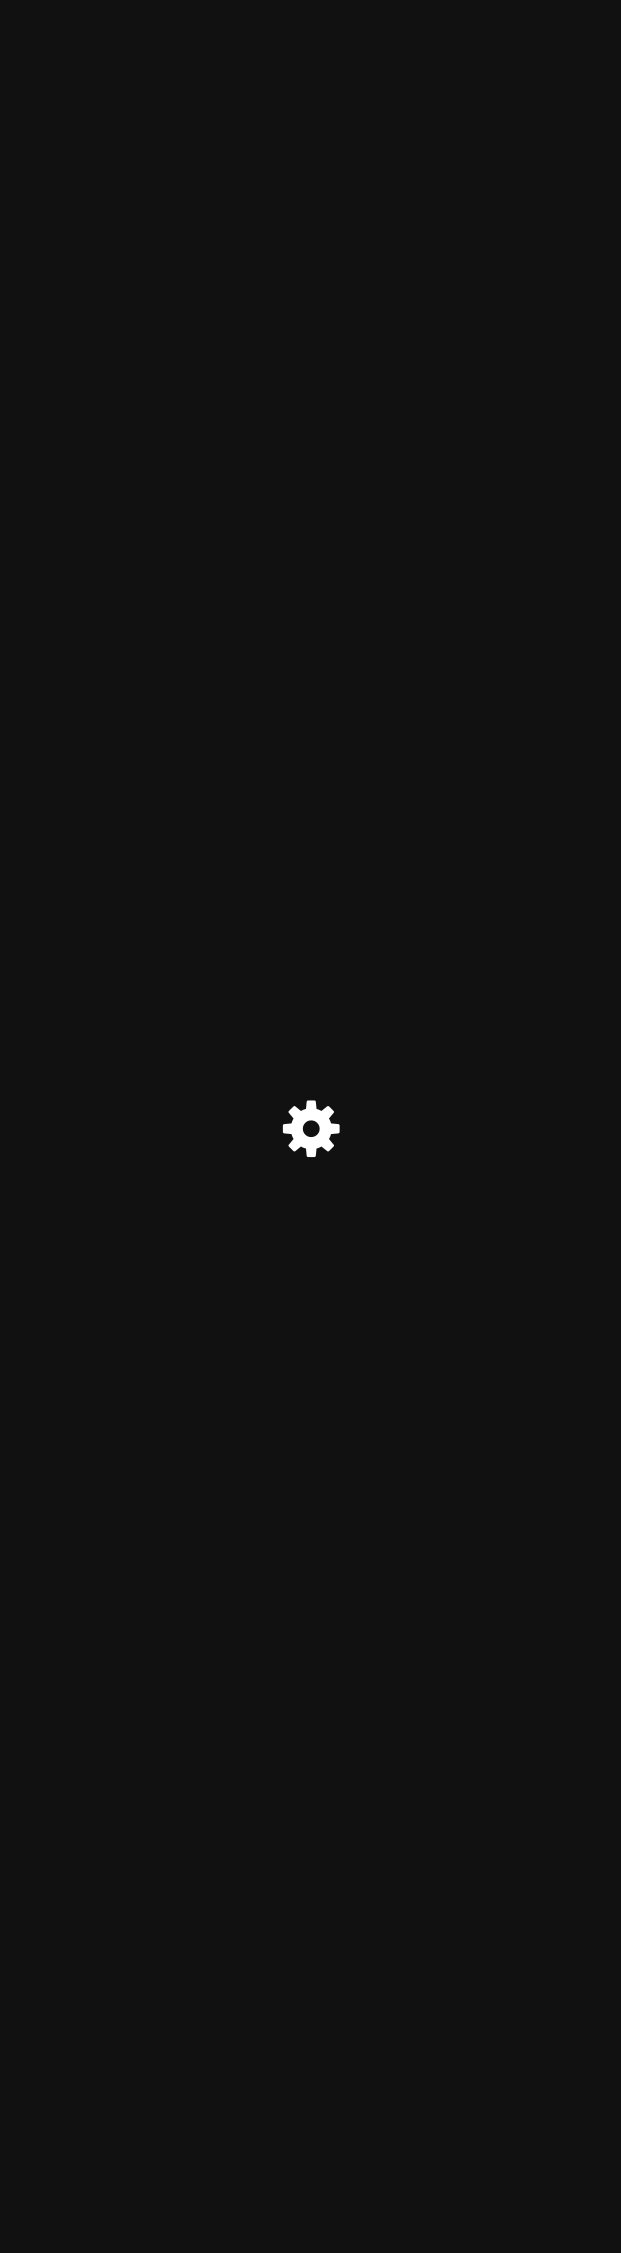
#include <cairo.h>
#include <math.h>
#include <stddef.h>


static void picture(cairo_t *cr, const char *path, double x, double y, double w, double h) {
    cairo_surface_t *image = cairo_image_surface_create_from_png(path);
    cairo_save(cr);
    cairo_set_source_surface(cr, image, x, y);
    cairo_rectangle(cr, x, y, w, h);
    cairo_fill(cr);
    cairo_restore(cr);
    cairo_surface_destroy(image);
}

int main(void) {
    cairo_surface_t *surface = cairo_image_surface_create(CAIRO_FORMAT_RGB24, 621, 2253);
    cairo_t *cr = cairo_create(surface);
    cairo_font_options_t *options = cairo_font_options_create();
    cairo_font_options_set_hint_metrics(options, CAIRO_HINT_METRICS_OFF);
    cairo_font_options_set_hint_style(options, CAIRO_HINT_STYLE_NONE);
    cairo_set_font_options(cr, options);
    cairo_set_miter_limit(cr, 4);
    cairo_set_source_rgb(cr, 0.067, 0.067, 0.067);
    cairo_paint(cr);
    picture(cr, "img1.png", 282, 1100, 58, 58);
    cairo_surface_write_to_png(surface, "page.png");
    cairo_font_options_destroy(options);
    cairo_destroy(cr);
    cairo_surface_destroy(surface);
    return 0;
}
